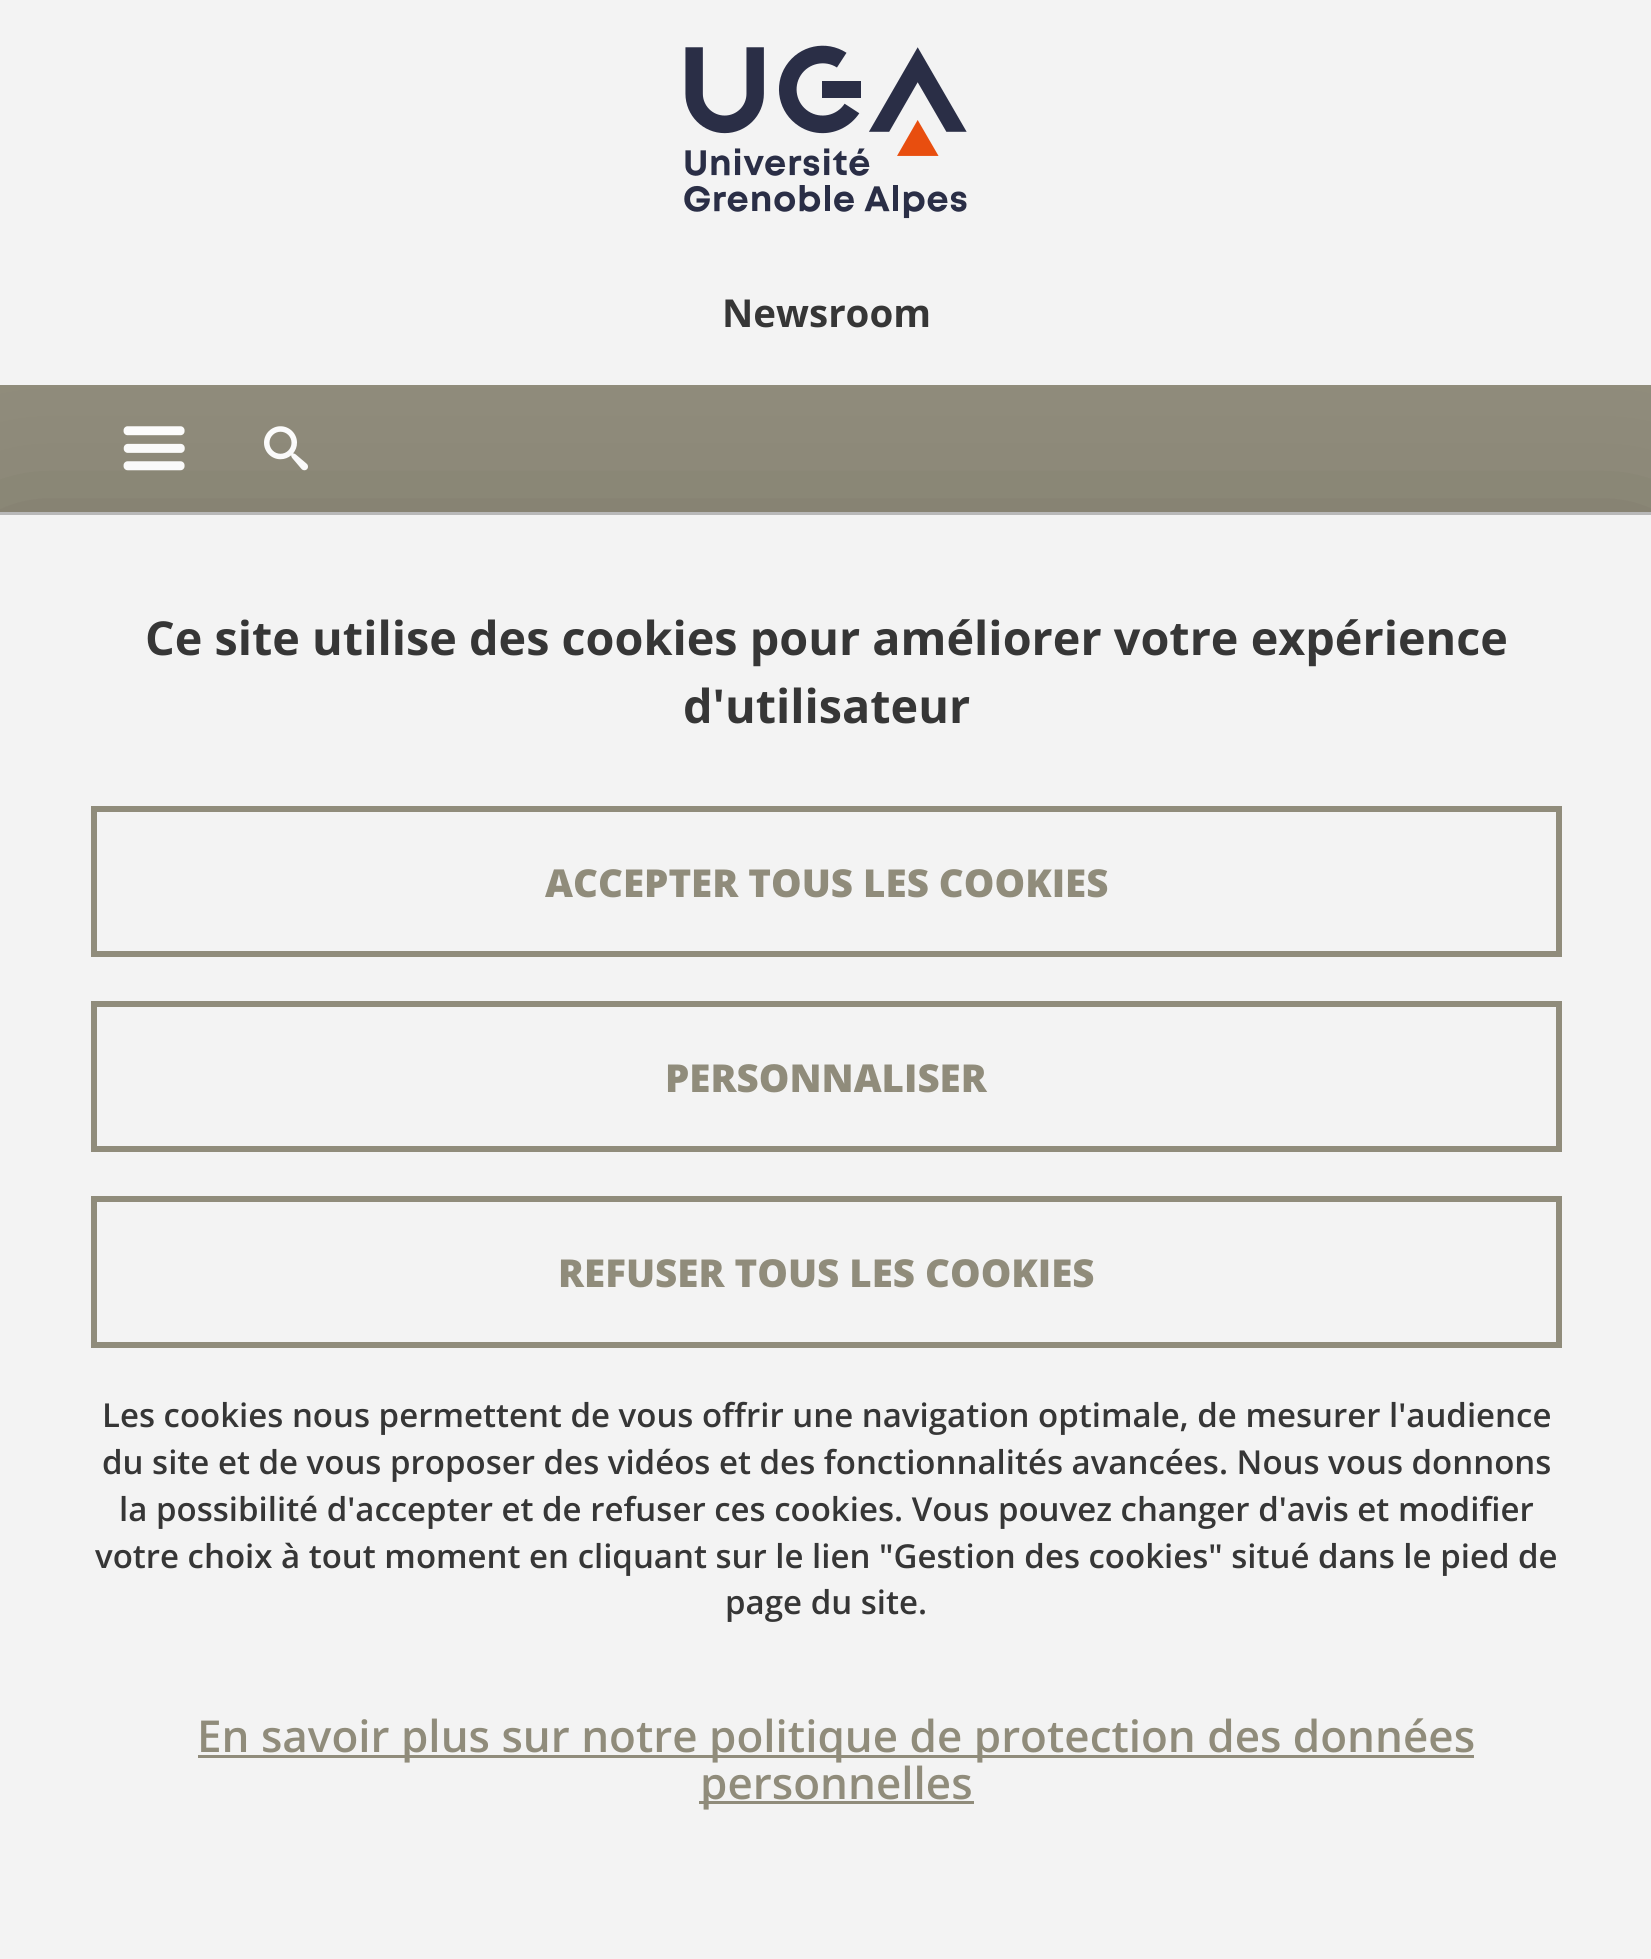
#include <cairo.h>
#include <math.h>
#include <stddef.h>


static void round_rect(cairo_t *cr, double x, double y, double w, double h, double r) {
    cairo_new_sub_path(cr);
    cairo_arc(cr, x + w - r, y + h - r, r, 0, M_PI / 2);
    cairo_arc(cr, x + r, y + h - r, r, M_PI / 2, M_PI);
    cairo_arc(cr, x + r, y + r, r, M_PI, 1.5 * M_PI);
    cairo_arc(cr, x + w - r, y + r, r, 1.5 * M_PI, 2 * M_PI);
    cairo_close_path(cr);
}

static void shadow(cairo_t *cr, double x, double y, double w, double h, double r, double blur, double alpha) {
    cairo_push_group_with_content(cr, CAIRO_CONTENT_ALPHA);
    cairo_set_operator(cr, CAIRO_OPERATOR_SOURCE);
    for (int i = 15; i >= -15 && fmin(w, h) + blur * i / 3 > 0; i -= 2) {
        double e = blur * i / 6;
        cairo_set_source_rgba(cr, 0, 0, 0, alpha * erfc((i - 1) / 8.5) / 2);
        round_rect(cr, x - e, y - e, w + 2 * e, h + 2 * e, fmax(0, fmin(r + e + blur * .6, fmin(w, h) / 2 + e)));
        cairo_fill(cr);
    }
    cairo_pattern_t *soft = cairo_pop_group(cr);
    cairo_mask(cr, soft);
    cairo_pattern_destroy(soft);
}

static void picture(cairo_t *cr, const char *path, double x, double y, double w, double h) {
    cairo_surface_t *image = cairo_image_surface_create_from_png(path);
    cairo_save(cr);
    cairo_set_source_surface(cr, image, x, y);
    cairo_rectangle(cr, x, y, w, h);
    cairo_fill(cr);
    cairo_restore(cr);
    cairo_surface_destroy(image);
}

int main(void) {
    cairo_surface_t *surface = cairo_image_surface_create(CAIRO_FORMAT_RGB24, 1651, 1959);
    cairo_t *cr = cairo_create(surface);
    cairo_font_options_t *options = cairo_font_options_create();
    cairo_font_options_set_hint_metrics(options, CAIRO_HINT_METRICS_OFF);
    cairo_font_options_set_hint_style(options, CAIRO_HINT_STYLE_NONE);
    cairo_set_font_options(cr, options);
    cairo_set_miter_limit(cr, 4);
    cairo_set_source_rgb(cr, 0.953, 0.953, 0.953);
    cairo_paint(cr);
    picture(cr, "img1.png", 684, 45, 283, 174);
    cairo_select_font_face(cr, "Open Sans", CAIRO_FONT_SLANT_NORMAL, CAIRO_FONT_WEIGHT_BOLD);
    cairo_set_font_size(cr, 38.5);
    cairo_set_source_rgb(cr, 0.212, 0.212, 0.212);
    cairo_move_to(cr, 722, 327);
    cairo_show_text(cr, "Newsroom");
    cairo_set_source_rgb(cr, 0.565, 0.549, 0.482);
    cairo_rectangle(cr, 0, 385, 1651, 127);
    cairo_fill(cr);
    picture(cr, "img2.png", 123, 426, 62, 45);
    picture(cr, "img3.png", 264, 426, 44, 45);
    cairo_set_source_rgb(cr, 0, 0, 0);
    shadow(cr, 0, 567, 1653, 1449, 0, 82.5, 0.25);
    cairo_set_source_rgb(cr, 0.953, 0.953, 0.953);
    cairo_rectangle(cr, 0, 515, 1651, 1444);
    cairo_fill(cr);
    cairo_set_source_rgb(cr, 0.722, 0.722, 0.722);
    cairo_rectangle(cr, 0, 512, 1651, 3);
    cairo_fill(cr);
    cairo_set_font_size(cr, 46.75);
    cairo_set_source_rgb(cr, 0.212, 0.212, 0.212);
    cairo_move_to(cr, 145, 655);
    cairo_show_text(cr, "Ce site utilise des cookies pour améliorer votre expérience");
    cairo_move_to(cr, 683, 723);
    cairo_show_text(cr, "d'utilisateur");
    cairo_rectangle(cr, 94, 809, 1465, 145);
    cairo_set_source_rgb(cr, 0.565, 0.549, 0.482);
    cairo_set_line_width(cr, 6);
    cairo_stroke(cr);
    cairo_select_font_face(cr, "Open Sans ExtraBold", CAIRO_FONT_SLANT_NORMAL, CAIRO_FONT_WEIGHT_NORMAL);
    cairo_set_font_size(cr, 38.5);
    cairo_move_to(cr, 545, 897);
    cairo_show_text(cr, "ACCEPTER TOUS LES COOKIES");
    cairo_rectangle(cr, 94, 1004, 1465, 145);
    cairo_stroke(cr);
    cairo_move_to(cr, 665, 1092);
    cairo_show_text(cr, "PERSONNALISER");
    cairo_rectangle(cr, 94, 1199, 1465, 146);
    cairo_stroke(cr);
    cairo_move_to(cr, 558, 1287);
    cairo_show_text(cr, "REFUSER TOUS LES COOKIES");
    cairo_select_font_face(cr, "Open Sans SemiBold", CAIRO_FONT_SLANT_NORMAL, CAIRO_FONT_WEIGHT_NORMAL);
    cairo_set_font_size(cr, 33);
    cairo_set_source_rgb(cr, 0.212, 0.212, 0.212);
    cairo_move_to(cr, 102, 1427);
    cairo_show_text(cr, "Les cookies nous permettent de vous offrir une navigation optimale, de mesurer l'audience");
    cairo_move_to(cr, 102, 1474);
    cairo_show_text(cr, "du site et de vous proposer des vidéos et des fonctionnalités avancées. Nous vous donnons");
    cairo_move_to(cr, 119, 1521);
    cairo_show_text(cr, "la possibilité d'accepter et de refuser ces cookies. Vous pouvez changer d'avis et modifier");
    cairo_move_to(cr, 95, 1568);
    cairo_show_text(cr, "votre choix à tout moment en cliquant sur le lien \"Gestion des cookies\" situé dans le pied de");
    cairo_move_to(cr, 725, 1614);
    cairo_show_text(cr, "page du site.");
    cairo_set_source_rgb(cr, 0.565, 0.549, 0.482);
    cairo_rectangle(cr, 198, 1755, 1276, 3);
    cairo_fill(cr);
    cairo_set_font_size(cr, 44);
    cairo_move_to(cr, 197, 1752);
    cairo_show_text(cr, "En savoir plus sur notre politique de protection des données");
    cairo_rectangle(cr, 699, 1801, 275, 3);
    cairo_fill(cr);
    cairo_move_to(cr, 700, 1799);
    cairo_show_text(cr, "personnelles");
    cairo_surface_write_to_png(surface, "page.png");
    cairo_font_options_destroy(options);
    cairo_destroy(cr);
    cairo_surface_destroy(surface);
    return 0;
}
